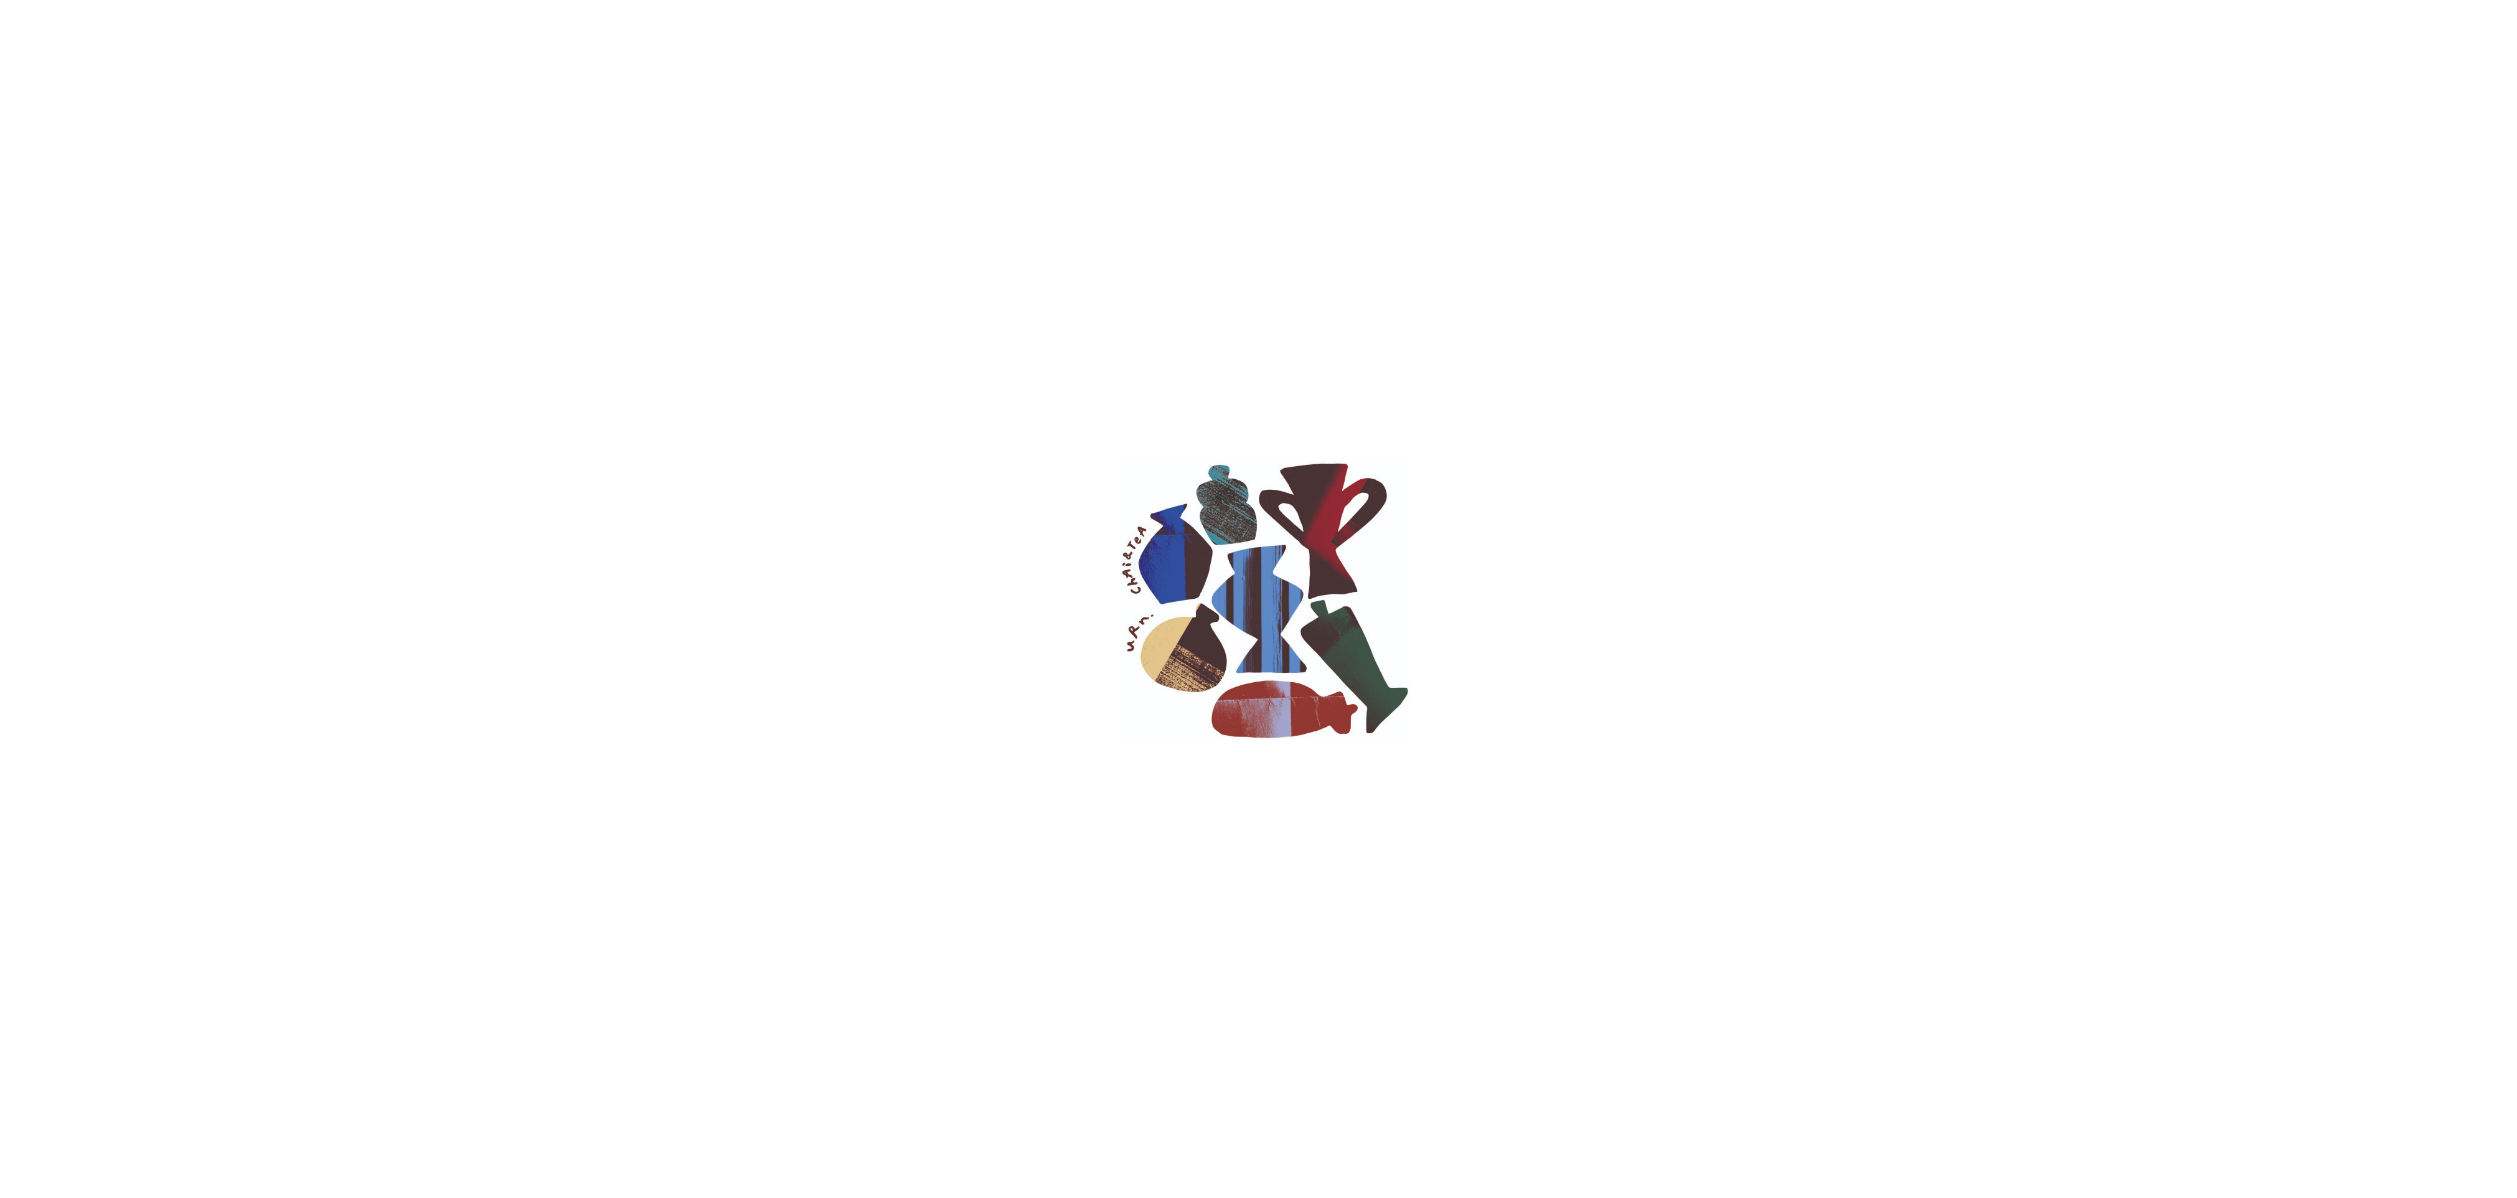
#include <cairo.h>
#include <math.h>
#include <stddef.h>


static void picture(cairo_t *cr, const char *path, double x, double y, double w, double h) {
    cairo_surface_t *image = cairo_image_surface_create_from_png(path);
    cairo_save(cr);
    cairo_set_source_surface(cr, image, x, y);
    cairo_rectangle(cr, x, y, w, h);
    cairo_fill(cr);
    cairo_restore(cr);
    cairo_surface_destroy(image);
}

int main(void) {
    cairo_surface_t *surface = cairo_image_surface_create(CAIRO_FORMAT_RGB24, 2517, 1198);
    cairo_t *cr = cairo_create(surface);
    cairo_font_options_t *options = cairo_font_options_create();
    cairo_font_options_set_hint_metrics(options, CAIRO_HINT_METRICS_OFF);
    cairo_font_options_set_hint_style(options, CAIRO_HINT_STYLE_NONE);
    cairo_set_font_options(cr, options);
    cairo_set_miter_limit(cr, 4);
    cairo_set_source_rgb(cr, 1, 1, 1);
    cairo_paint(cr);
    picture(cr, "img1.png", 1120, 461, 289, 278);
    cairo_surface_write_to_png(surface, "page.png");
    cairo_font_options_destroy(options);
    cairo_destroy(cr);
    cairo_surface_destroy(surface);
    return 0;
}
